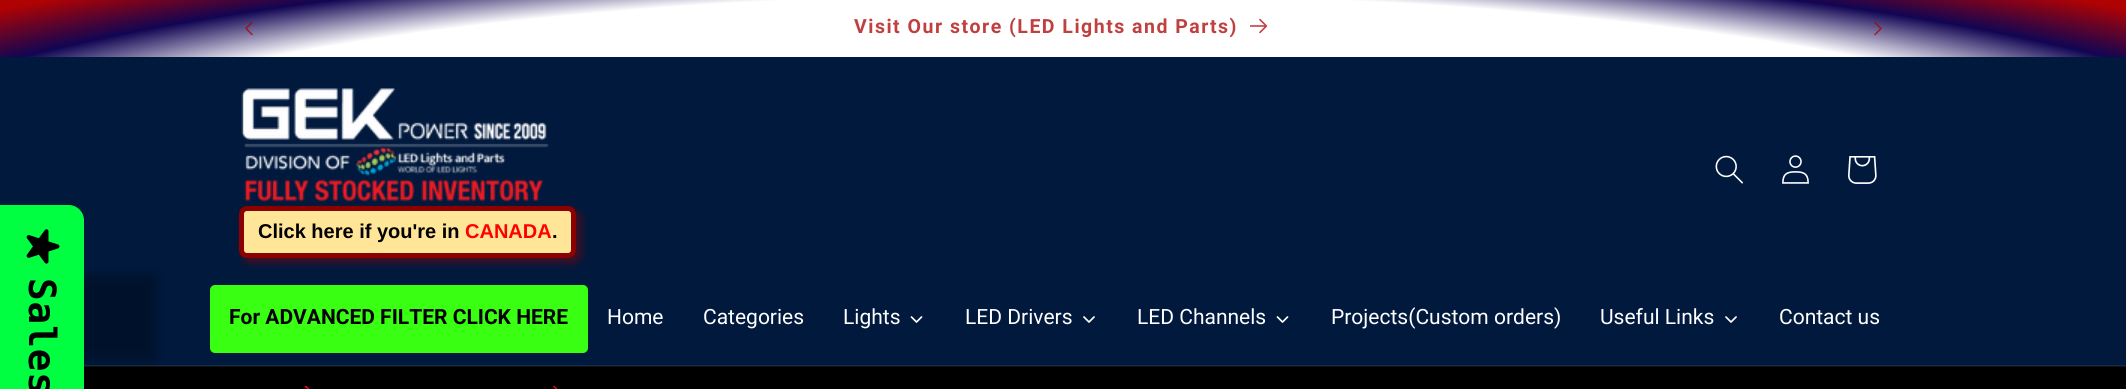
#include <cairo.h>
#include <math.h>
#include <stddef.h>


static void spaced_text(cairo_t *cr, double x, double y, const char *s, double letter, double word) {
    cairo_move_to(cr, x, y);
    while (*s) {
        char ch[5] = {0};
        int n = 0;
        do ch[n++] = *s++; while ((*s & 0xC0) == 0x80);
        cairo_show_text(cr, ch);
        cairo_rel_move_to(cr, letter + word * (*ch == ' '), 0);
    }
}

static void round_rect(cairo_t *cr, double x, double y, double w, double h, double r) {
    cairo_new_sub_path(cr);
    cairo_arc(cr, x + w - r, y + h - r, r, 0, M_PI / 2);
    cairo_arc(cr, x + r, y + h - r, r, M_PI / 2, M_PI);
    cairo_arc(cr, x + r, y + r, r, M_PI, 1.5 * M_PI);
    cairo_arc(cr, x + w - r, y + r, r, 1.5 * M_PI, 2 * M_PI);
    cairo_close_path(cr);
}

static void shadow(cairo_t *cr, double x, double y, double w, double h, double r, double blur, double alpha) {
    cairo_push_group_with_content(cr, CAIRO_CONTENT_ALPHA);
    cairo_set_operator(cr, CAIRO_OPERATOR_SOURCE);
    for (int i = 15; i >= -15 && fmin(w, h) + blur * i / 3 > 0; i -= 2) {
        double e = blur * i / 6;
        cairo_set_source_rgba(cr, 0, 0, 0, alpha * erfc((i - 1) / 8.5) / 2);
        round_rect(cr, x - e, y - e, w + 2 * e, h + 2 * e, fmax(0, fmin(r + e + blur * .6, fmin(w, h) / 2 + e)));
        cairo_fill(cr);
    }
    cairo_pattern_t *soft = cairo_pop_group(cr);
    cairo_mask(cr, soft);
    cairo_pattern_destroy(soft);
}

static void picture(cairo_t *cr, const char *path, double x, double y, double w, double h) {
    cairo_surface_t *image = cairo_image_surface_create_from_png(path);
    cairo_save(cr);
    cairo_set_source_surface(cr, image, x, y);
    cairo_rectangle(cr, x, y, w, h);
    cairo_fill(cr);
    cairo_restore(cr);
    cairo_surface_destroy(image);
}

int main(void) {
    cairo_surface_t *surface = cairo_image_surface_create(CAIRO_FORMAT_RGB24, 2126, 389);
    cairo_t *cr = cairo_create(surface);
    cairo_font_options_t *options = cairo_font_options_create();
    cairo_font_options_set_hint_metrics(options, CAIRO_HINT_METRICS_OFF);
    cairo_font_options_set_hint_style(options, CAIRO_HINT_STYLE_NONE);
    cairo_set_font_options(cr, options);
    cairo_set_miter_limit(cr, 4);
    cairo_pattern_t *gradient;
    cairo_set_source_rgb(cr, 0, 0, 0);
    cairo_paint(cr);
    gradient = cairo_pattern_create_radial(0, 0, 0, 0, 0, 1);
    cairo_pattern_set_matrix(gradient, &(cairo_matrix_t){1.0 / 1504, 0, 0, 1.0 / 276, -1.0 * 1064 / 1504, -1.0 * 195 / 276});
    cairo_pattern_add_color_stop_rgba(gradient, 0.73, 1, 1, 1, 1);
    cairo_pattern_add_color_stop_rgba(gradient, 0.86, 0.067, 0.02, 0.325, 1);
    cairo_pattern_add_color_stop_rgba(gradient, 0.98, 0.686, 0.008, 0.008, 1);
    cairo_set_source(cr, gradient);
    cairo_pattern_destroy(gradient);
    cairo_rectangle(cr, 0, 0, 2126, 57);
    cairo_fill(cr);
    picture(cr, "img1.png", 245, 21, 8, 15);
    cairo_select_font_face(cr, "Roboto", CAIRO_FONT_SLANT_NORMAL, CAIRO_FONT_WEIGHT_BOLD);
    cairo_set_font_size(cr, 19.5);
    cairo_set_source_rgb(cr, 0.753, 0.251, 0.251);
    spaced_text(cr, 854, 33, "Visit Our store (LED Lights and Parts)", 1.5, 0);
    picture(cr, "img2.png", 1250, 18, 18, 16);
    picture(cr, "img3.png", 1874, 21, 8, 15);
    cairo_set_source_rgb(cr, 0, 0.098, 0.239);
    cairo_rectangle(cr, 0, 57, 2126, 308);
    cairo_fill(cr);
    cairo_set_source_rgb(cr, 0.078, 0.169, 0.302);
    cairo_rectangle(cr, 84, 365, 2042, 1);
    cairo_fill(cr);
    cairo_set_source_rgb(cr, 0.078, 0.078, 0.078);
    cairo_rectangle(cr, 84, 366, 2042, 1);
    cairo_fill(cr);
    cairo_set_source_rgb(cr, 0, 0, 0);
    shadow(cr, -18, 276, 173, 84, 0, 6, 0.3);
    cairo_set_source_rgb(cr, 0, 1, 0.251);
    cairo_new_path(cr);
    cairo_move_to(cr, 84, 220);
    cairo_line_to(cr, 84, 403);
    cairo_curve_to(cr, 84, 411, 77, 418, 69, 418);
    cairo_line_to(cr, 0, 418);
    cairo_line_to(cr, 0, 205);
    cairo_line_to(cr, 69, 205);
    cairo_curve_to(cr, 77, 205, 84, 212, 84, 220);
    cairo_close_path(cr);
    cairo_fill(cr);
    picture(cr, "img4.png", 26, 229, 34, 35);
    cairo_select_font_face(cr, "DejaVu Sans Mono", CAIRO_FONT_SLANT_NORMAL, CAIRO_FONT_WEIGHT_BOLD);
    cairo_set_font_size(cr, 37.5);
    cairo_set_source_rgb(cr, 0, 0, 0);
    cairo_save(cr);
    cairo_translate(cr, 29, 278);
    cairo_rotate(cr, 90 * M_PI / 180);
    spaced_text(cr, 0, 0, "Sales", 1, 0);
    cairo_restore(cr);
    picture(cr, "img5.png", 1715, 155, 28, 29);
    picture(cr, "img6.png", 1782, 155, 27, 29);
    picture(cr, "img7.png", 1848, 156, 29, 28);
    cairo_set_source_rgb(cr, 0.545, 0, 0);
    shadow(cr, 243, 210, 338, 53, 8, 4, 0.5);
    picture(cr, "img8.png", 241, 88, 308, 114);
    cairo_set_source_rgb(cr, 1, 0.898, 0.592);
    round_rect(cr, 241.5, 208.5, 332, 47, 5.5);
    cairo_fill_preserve(cr);
    cairo_set_source_rgb(cr, 0.545, 0, 0);
    cairo_set_line_width(cr, 5);
    cairo_stroke(cr);
    cairo_select_font_face(cr, "Liberation Sans", CAIRO_FONT_SLANT_NORMAL, CAIRO_FONT_WEIGHT_BOLD);
    cairo_set_font_size(cr, 20);
    cairo_set_source_rgb(cr, 0, 0, 0);
    cairo_move_to(cr, 258, 238);
    cairo_show_text(cr, "Click here if you're in");
    cairo_set_source_rgb(cr, 1, 0, 0);
    cairo_move_to(cr, 465, 238);
    cairo_show_text(cr, "CANADA");
    cairo_set_source_rgb(cr, 0, 0, 0);
    cairo_move_to(cr, 552, 238);
    cairo_show_text(cr, ".");
    cairo_set_source_rgb(cr, 0.224, 1, 0.078);
    round_rect(cr, 210, 285, 378, 68, 5);
    cairo_fill(cr);
    cairo_select_font_face(cr, "Roboto", CAIRO_FONT_SLANT_NORMAL, CAIRO_FONT_WEIGHT_BOLD);
    cairo_set_font_size(cr, 21);
    cairo_set_source_rgb(cr, 0, 0, 0);
    cairo_move_to(cr, 229, 324);
    cairo_show_text(cr, "For ADVANCED FILTER CLICK HERE");
    cairo_select_font_face(cr, "Roboto", CAIRO_FONT_SLANT_NORMAL, CAIRO_FONT_WEIGHT_NORMAL);
    cairo_set_source_rgb(cr, 1, 1, 1);
    cairo_move_to(cr, 607, 324);
    cairo_show_text(cr, "Home");
    cairo_move_to(cr, 703, 324);
    cairo_show_text(cr, "Categories");
    cairo_move_to(cr, 843, 324);
    cairo_show_text(cr, "Lights");
    picture(cr, "img9.png", 910, 316, 13, 7);
    cairo_move_to(cr, 965, 324);
    cairo_show_text(cr, "LED Drivers");
    picture(cr, "img10.png", 1083, 316, 12, 7);
    cairo_move_to(cr, 1137, 324);
    cairo_show_text(cr, "LED Channels");
    picture(cr, "img9.png", 1276, 316, 13, 7);
    cairo_move_to(cr, 1331, 324);
    cairo_show_text(cr, "Projects(Custom orders)");
    cairo_move_to(cr, 1600, 324);
    cairo_show_text(cr, "Useful Links");
    picture(cr, "img10.png", 1725, 316, 12, 7);
    cairo_move_to(cr, 1779, 324);
    cairo_show_text(cr, "Contact us");
    cairo_set_source_rgb(cr, 1, 0, 0);
    cairo_new_path(cr);
    cairo_move_to(cr, 306, 385.5);
    cairo_line_to(cr, 311, 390.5);
    cairo_line_to(cr, 310, 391.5);
    cairo_line_to(cr, 304.5, 386.5);
    cairo_close_path(cr);
    cairo_fill(cr);
    cairo_new_path(cr);
    cairo_move_to(cr, 554, 385.5);
    cairo_line_to(cr, 559, 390.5);
    cairo_line_to(cr, 558, 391.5);
    cairo_line_to(cr, 553, 386.5);
    cairo_close_path(cr);
    cairo_fill(cr);
    cairo_surface_write_to_png(surface, "page.png");
    cairo_font_options_destroy(options);
    cairo_destroy(cr);
    cairo_surface_destroy(surface);
    return 0;
}
